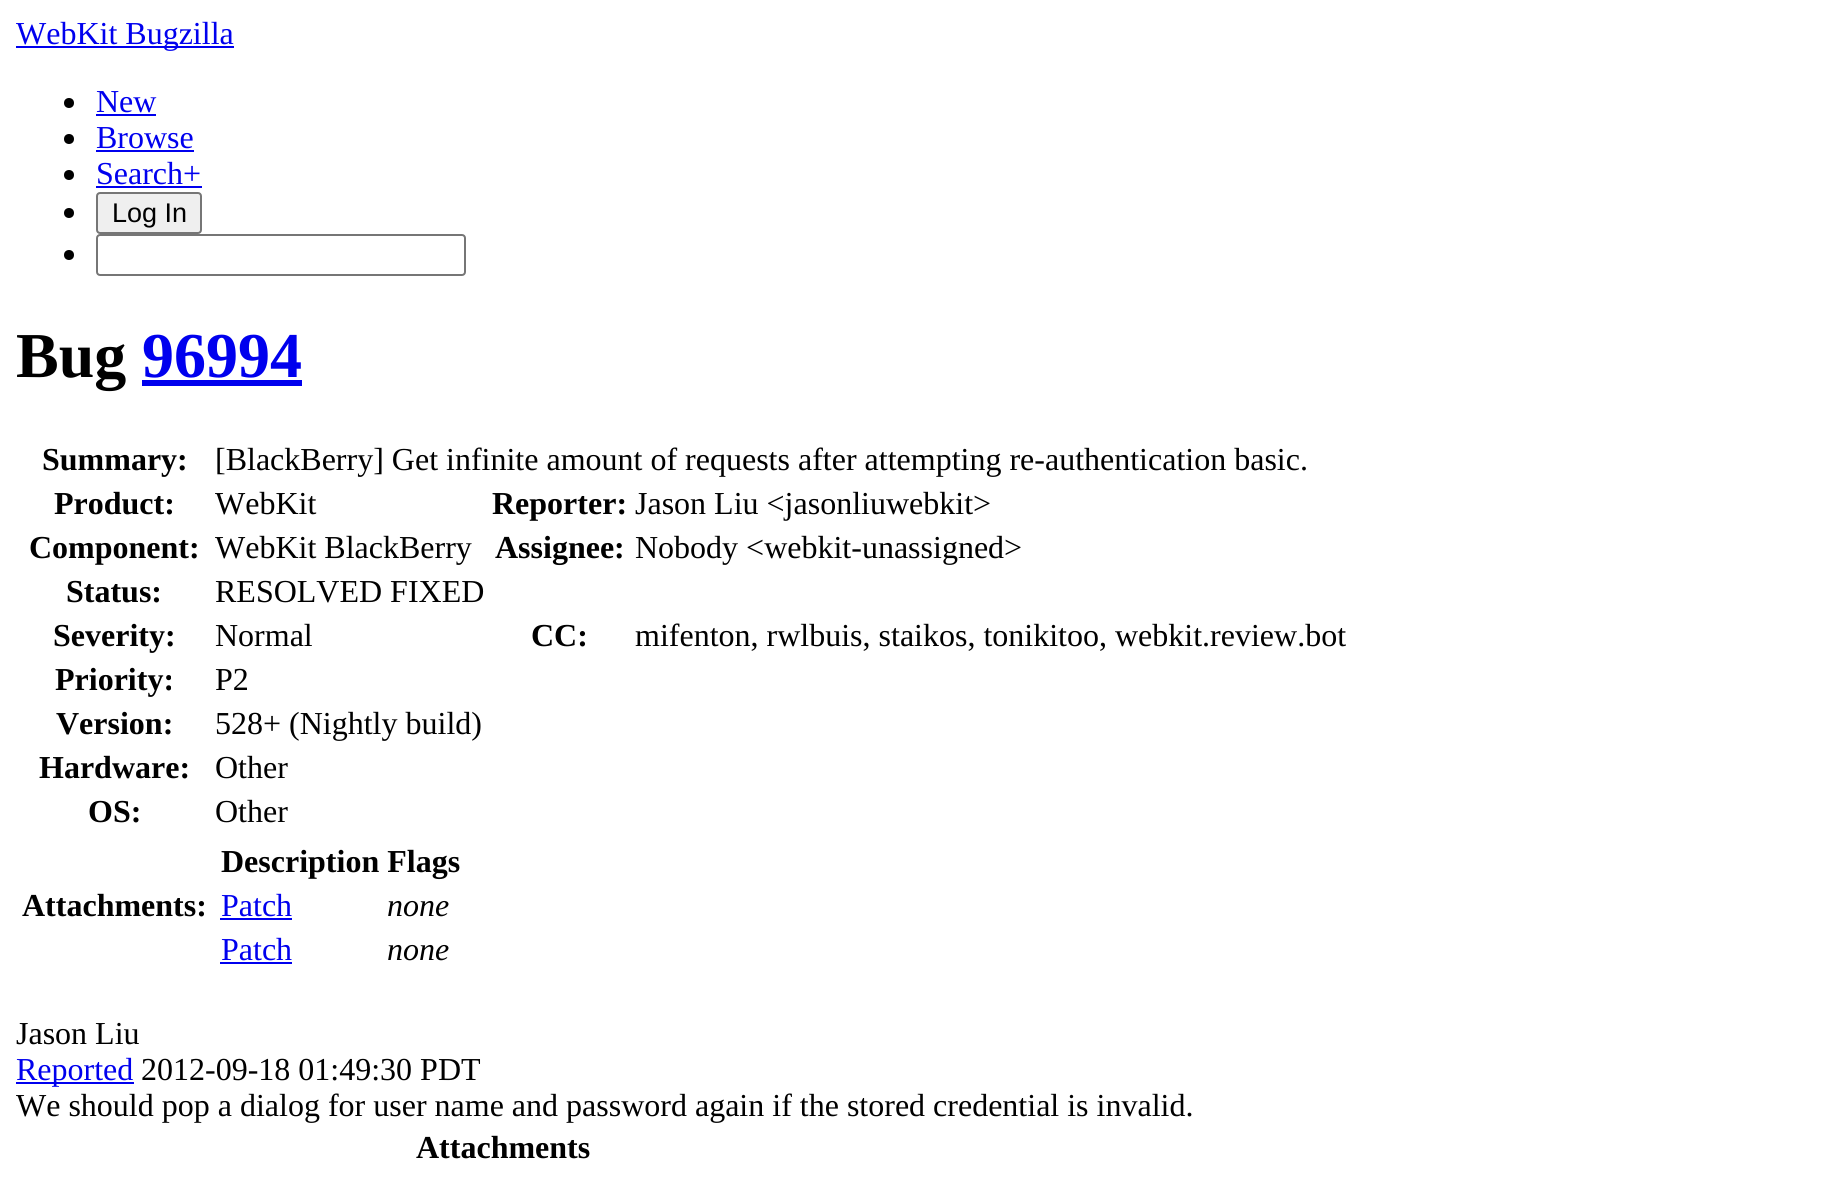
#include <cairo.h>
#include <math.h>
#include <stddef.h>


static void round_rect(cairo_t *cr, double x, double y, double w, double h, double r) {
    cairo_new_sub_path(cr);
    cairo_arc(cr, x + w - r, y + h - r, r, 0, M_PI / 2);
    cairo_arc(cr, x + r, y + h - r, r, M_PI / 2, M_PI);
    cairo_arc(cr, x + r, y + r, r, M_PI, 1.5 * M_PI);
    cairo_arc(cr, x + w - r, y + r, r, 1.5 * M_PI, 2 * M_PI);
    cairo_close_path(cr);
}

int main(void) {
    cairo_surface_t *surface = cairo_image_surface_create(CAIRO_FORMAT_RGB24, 1821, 1194);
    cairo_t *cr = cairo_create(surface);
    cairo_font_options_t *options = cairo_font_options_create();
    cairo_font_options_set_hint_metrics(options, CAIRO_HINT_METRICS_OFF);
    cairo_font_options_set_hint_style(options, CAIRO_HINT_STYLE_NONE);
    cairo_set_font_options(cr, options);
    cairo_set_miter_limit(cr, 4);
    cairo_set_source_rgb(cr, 1, 1, 1);
    cairo_paint(cr);
    cairo_set_source_rgb(cr, 0, 0, 0.933);
    cairo_rectangle(cr, 16, 46, 218, 2);
    cairo_fill(cr);
    cairo_select_font_face(cr, "Liberation Serif", CAIRO_FONT_SLANT_NORMAL, CAIRO_FONT_WEIGHT_NORMAL);
    cairo_set_font_size(cr, 32);
    cairo_move_to(cr, 16, 44);
    cairo_show_text(cr, "WebKit Bugzilla");
    cairo_set_source_rgb(cr, 0, 0, 0);
    cairo_new_path(cr);
    cairo_arc(cr, 69, 103, 5, 0, 2 * M_PI);
    cairo_fill(cr);
    cairo_set_source_rgb(cr, 0, 0, 0.933);
    cairo_move_to(cr, 96, 112);
    cairo_show_text(cr, "New");
    cairo_rectangle(cr, 96, 114, 60, 2);
    cairo_fill(cr);
    cairo_set_source_rgb(cr, 0, 0, 0);
    cairo_arc(cr, 69, 139, 5, 0, 2 * M_PI);
    cairo_fill(cr);
    cairo_set_source_rgb(cr, 0, 0, 0.933);
    cairo_move_to(cr, 96, 148);
    cairo_show_text(cr, "Browse");
    cairo_rectangle(cr, 96, 150, 98, 2);
    cairo_fill(cr);
    cairo_set_source_rgb(cr, 0, 0, 0);
    cairo_arc(cr, 69, 175, 5, 0, 2 * M_PI);
    cairo_fill(cr);
    cairo_set_source_rgb(cr, 0, 0, 0.933);
    cairo_move_to(cr, 96, 184);
    cairo_show_text(cr, "Search+");
    cairo_rectangle(cr, 96, 186, 106, 2);
    cairo_fill(cr);
    cairo_set_source_rgb(cr, 0, 0, 0);
    cairo_arc(cr, 69, 213, 5, 0, 2 * M_PI);
    cairo_fill(cr);
    cairo_set_source_rgb(cr, 0.937, 0.937, 0.937);
    round_rect(cr, 97, 193, 104, 40, 3);
    cairo_fill_preserve(cr);
    cairo_set_source_rgb(cr, 0.463, 0.463, 0.463);
    cairo_stroke(cr);
    cairo_select_font_face(cr, "Liberation Sans", CAIRO_FONT_SLANT_NORMAL, CAIRO_FONT_WEIGHT_NORMAL);
    cairo_set_font_size(cr, 27);
    cairo_set_source_rgb(cr, 0, 0, 0);
    cairo_move_to(cr, 112, 222);
    cairo_show_text(cr, "Log In");
    cairo_new_path(cr);
    cairo_arc(cr, 69, 255, 5, 0, 2 * M_PI);
    cairo_fill(cr);
    round_rect(cr, 97, 235, 368, 40, 3);
    cairo_set_source_rgb(cr, 0.463, 0.463, 0.463);
    cairo_stroke(cr);
    cairo_select_font_face(cr, "Liberation Serif", CAIRO_FONT_SLANT_NORMAL, CAIRO_FONT_WEIGHT_BOLD);
    cairo_set_font_size(cr, 64);
    cairo_set_source_rgb(cr, 0, 0, 0);
    cairo_move_to(cr, 16, 377);
    cairo_show_text(cr, "Bug");
    cairo_set_source_rgb(cr, 0, 0, 0.933);
    cairo_move_to(cr, 142, 377);
    cairo_show_text(cr, "96994");
    cairo_rectangle(cr, 142, 380, 160, 6);
    cairo_fill(cr);
    cairo_set_font_size(cr, 32);
    cairo_set_source_rgb(cr, 0, 0, 0);
    cairo_move_to(cr, 42, 470);
    cairo_show_text(cr, "Summary:");
    cairo_select_font_face(cr, "Liberation Serif", CAIRO_FONT_SLANT_NORMAL, CAIRO_FONT_WEIGHT_NORMAL);
    cairo_move_to(cr, 215, 470);
    cairo_show_text(cr, "[BlackBerry] Get infinite amount of requests after attempting re-authentication basic.");
    cairo_select_font_face(cr, "Liberation Serif", CAIRO_FONT_SLANT_NORMAL, CAIRO_FONT_WEIGHT_BOLD);
    cairo_move_to(cr, 54, 514);
    cairo_show_text(cr, "Product:");
    cairo_select_font_face(cr, "Liberation Serif", CAIRO_FONT_SLANT_NORMAL, CAIRO_FONT_WEIGHT_NORMAL);
    cairo_move_to(cr, 215, 514);
    cairo_show_text(cr, "WebKit");
    cairo_select_font_face(cr, "Liberation Serif", CAIRO_FONT_SLANT_NORMAL, CAIRO_FONT_WEIGHT_BOLD);
    cairo_move_to(cr, 492, 514);
    cairo_show_text(cr, "Reporter:");
    cairo_select_font_face(cr, "Liberation Serif", CAIRO_FONT_SLANT_NORMAL, CAIRO_FONT_WEIGHT_NORMAL);
    cairo_move_to(cr, 635, 514);
    cairo_show_text(cr, "Jason Liu <jasonliuwebkit>");
    cairo_select_font_face(cr, "Liberation Serif", CAIRO_FONT_SLANT_NORMAL, CAIRO_FONT_WEIGHT_BOLD);
    cairo_move_to(cr, 29, 558);
    cairo_show_text(cr, "Component:");
    cairo_select_font_face(cr, "Liberation Serif", CAIRO_FONT_SLANT_NORMAL, CAIRO_FONT_WEIGHT_NORMAL);
    cairo_move_to(cr, 215, 558);
    cairo_show_text(cr, "WebKit BlackBerry");
    cairo_select_font_face(cr, "Liberation Serif", CAIRO_FONT_SLANT_NORMAL, CAIRO_FONT_WEIGHT_BOLD);
    cairo_move_to(cr, 495, 558);
    cairo_show_text(cr, "Assignee:");
    cairo_select_font_face(cr, "Liberation Serif", CAIRO_FONT_SLANT_NORMAL, CAIRO_FONT_WEIGHT_NORMAL);
    cairo_move_to(cr, 635, 558);
    cairo_show_text(cr, "Nobody <webkit-unassigned>");
    cairo_select_font_face(cr, "Liberation Serif", CAIRO_FONT_SLANT_NORMAL, CAIRO_FONT_WEIGHT_BOLD);
    cairo_move_to(cr, 66, 602);
    cairo_show_text(cr, "Status:");
    cairo_select_font_face(cr, "Liberation Serif", CAIRO_FONT_SLANT_NORMAL, CAIRO_FONT_WEIGHT_NORMAL);
    cairo_move_to(cr, 215, 602);
    cairo_show_text(cr, "RESOLVED FIXED");
    cairo_select_font_face(cr, "Liberation Serif", CAIRO_FONT_SLANT_NORMAL, CAIRO_FONT_WEIGHT_BOLD);
    cairo_move_to(cr, 53, 646);
    cairo_show_text(cr, "Severity:");
    cairo_select_font_face(cr, "Liberation Serif", CAIRO_FONT_SLANT_NORMAL, CAIRO_FONT_WEIGHT_NORMAL);
    cairo_move_to(cr, 215, 646);
    cairo_show_text(cr, "Normal");
    cairo_select_font_face(cr, "Liberation Serif", CAIRO_FONT_SLANT_NORMAL, CAIRO_FONT_WEIGHT_BOLD);
    cairo_move_to(cr, 531, 646);
    cairo_show_text(cr, "CC:");
    cairo_select_font_face(cr, "Liberation Serif", CAIRO_FONT_SLANT_NORMAL, CAIRO_FONT_WEIGHT_NORMAL);
    cairo_move_to(cr, 635, 646);
    cairo_show_text(cr, "mifenton, rwlbuis, staikos, tonikitoo, webkit.review.bot");
    cairo_select_font_face(cr, "Liberation Serif", CAIRO_FONT_SLANT_NORMAL, CAIRO_FONT_WEIGHT_BOLD);
    cairo_move_to(cr, 55, 690);
    cairo_show_text(cr, "Priority:");
    cairo_select_font_face(cr, "Liberation Serif", CAIRO_FONT_SLANT_NORMAL, CAIRO_FONT_WEIGHT_NORMAL);
    cairo_move_to(cr, 215, 690);
    cairo_show_text(cr, "P2");
    cairo_select_font_face(cr, "Liberation Serif", CAIRO_FONT_SLANT_NORMAL, CAIRO_FONT_WEIGHT_BOLD);
    cairo_move_to(cr, 56, 734);
    cairo_show_text(cr, "Version:");
    cairo_select_font_face(cr, "Liberation Serif", CAIRO_FONT_SLANT_NORMAL, CAIRO_FONT_WEIGHT_NORMAL);
    cairo_move_to(cr, 215, 734);
    cairo_show_text(cr, "528+ (Nightly build)");
    cairo_select_font_face(cr, "Liberation Serif", CAIRO_FONT_SLANT_NORMAL, CAIRO_FONT_WEIGHT_BOLD);
    cairo_move_to(cr, 39, 778);
    cairo_show_text(cr, "Hardware:");
    cairo_select_font_face(cr, "Liberation Serif", CAIRO_FONT_SLANT_NORMAL, CAIRO_FONT_WEIGHT_NORMAL);
    cairo_move_to(cr, 215, 778);
    cairo_show_text(cr, "Other");
    cairo_select_font_face(cr, "Liberation Serif", CAIRO_FONT_SLANT_NORMAL, CAIRO_FONT_WEIGHT_BOLD);
    cairo_move_to(cr, 88, 822);
    cairo_show_text(cr, "OS:");
    cairo_select_font_face(cr, "Liberation Serif", CAIRO_FONT_SLANT_NORMAL, CAIRO_FONT_WEIGHT_NORMAL);
    cairo_move_to(cr, 215, 822);
    cairo_show_text(cr, "Other");
    cairo_select_font_face(cr, "Liberation Serif", CAIRO_FONT_SLANT_NORMAL, CAIRO_FONT_WEIGHT_BOLD);
    cairo_move_to(cr, 22, 916);
    cairo_show_text(cr, "Attachments:");
    cairo_move_to(cr, 221, 872);
    cairo_show_text(cr, "Description Flags");
    cairo_select_font_face(cr, "Liberation Serif", CAIRO_FONT_SLANT_NORMAL, CAIRO_FONT_WEIGHT_NORMAL);
    cairo_set_source_rgb(cr, 0, 0, 0.933);
    cairo_move_to(cr, 221, 916);
    cairo_show_text(cr, "Patch");
    cairo_rectangle(cr, 220, 918, 72, 2);
    cairo_fill(cr);
    cairo_select_font_face(cr, "Liberation Serif", CAIRO_FONT_SLANT_ITALIC, CAIRO_FONT_WEIGHT_NORMAL);
    cairo_set_source_rgb(cr, 0, 0, 0);
    cairo_move_to(cr, 387, 916);
    cairo_show_text(cr, "none");
    cairo_select_font_face(cr, "Liberation Serif", CAIRO_FONT_SLANT_NORMAL, CAIRO_FONT_WEIGHT_NORMAL);
    cairo_set_source_rgb(cr, 0, 0, 0.933);
    cairo_move_to(cr, 221, 960);
    cairo_show_text(cr, "Patch");
    cairo_rectangle(cr, 220, 962, 72, 2);
    cairo_fill(cr);
    cairo_select_font_face(cr, "Liberation Serif", CAIRO_FONT_SLANT_ITALIC, CAIRO_FONT_WEIGHT_NORMAL);
    cairo_set_source_rgb(cr, 0, 0, 0);
    cairo_move_to(cr, 387, 960);
    cairo_show_text(cr, "none");
    cairo_select_font_face(cr, "Liberation Serif", CAIRO_FONT_SLANT_NORMAL, CAIRO_FONT_WEIGHT_NORMAL);
    cairo_move_to(cr, 16, 1044);
    cairo_show_text(cr, "Jason Liu");
    cairo_set_source_rgb(cr, 0, 0, 0.933);
    cairo_rectangle(cr, 16, 1082, 118, 2);
    cairo_fill(cr);
    cairo_move_to(cr, 16, 1080);
    cairo_show_text(cr, "Reported");
    cairo_set_source_rgb(cr, 0, 0, 0);
    cairo_move_to(cr, 141, 1080);
    cairo_show_text(cr, "2012-09-18 01:49:30 PDT");
    cairo_move_to(cr, 16, 1116);
    cairo_show_text(cr, "We should pop a dialog for user name and password again if the stored credential is invalid.");
    cairo_select_font_face(cr, "Liberation Serif", CAIRO_FONT_SLANT_NORMAL, CAIRO_FONT_WEIGHT_BOLD);
    cairo_move_to(cr, 416, 1158);
    cairo_show_text(cr, "Attachments");
    cairo_surface_write_to_png(surface, "page.png");
    cairo_font_options_destroy(options);
    cairo_destroy(cr);
    cairo_surface_destroy(surface);
    return 0;
}
